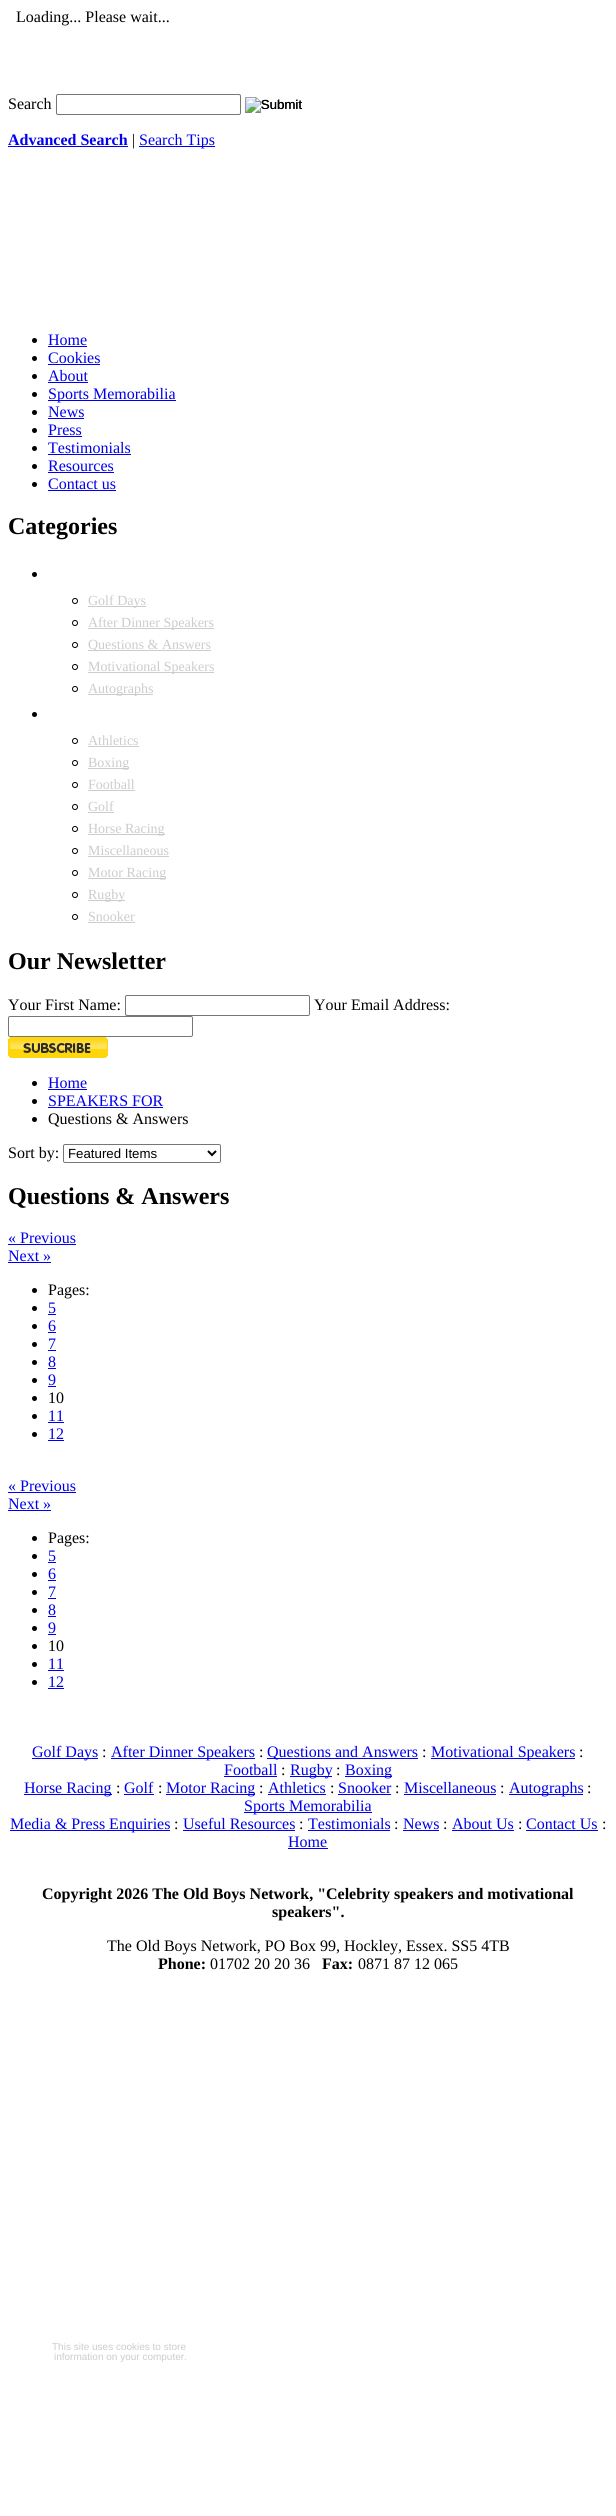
#include <cairo.h>
#include <math.h>
#include <stddef.h>


static void round_rect(cairo_t *cr, double x, double y, double w, double h, double r) {
    cairo_new_sub_path(cr);
    cairo_arc(cr, x + w - r, y + h - r, r, 0, M_PI / 2);
    cairo_arc(cr, x + r, y + h - r, r, M_PI / 2, M_PI);
    cairo_arc(cr, x + r, y + r, r, M_PI, 1.5 * M_PI);
    cairo_arc(cr, x + w - r, y + r, r, 1.5 * M_PI, 2 * M_PI);
    cairo_close_path(cr);
}

static void picture(cairo_t *cr, const char *path, double x, double y, double w, double h) {
    cairo_surface_t *image = cairo_image_surface_create_from_png(path);
    cairo_save(cr);
    cairo_set_source_surface(cr, image, x, y);
    cairo_rectangle(cr, x, y, w, h);
    cairo_fill(cr);
    cairo_restore(cr);
    cairo_surface_destroy(image);
}

int main(void) {
    cairo_surface_t *surface = cairo_image_surface_create(CAIRO_FORMAT_RGB24, 616, 2516);
    cairo_t *cr = cairo_create(surface);
    cairo_font_options_t *options = cairo_font_options_create();
    cairo_font_options_set_hint_metrics(options, CAIRO_HINT_METRICS_OFF);
    cairo_font_options_set_hint_style(options, CAIRO_HINT_STYLE_NONE);
    cairo_set_font_options(cr, options);
    cairo_set_miter_limit(cr, 4);
    cairo_set_source_rgb(cr, 1, 1, 1);
    cairo_paint(cr);
    cairo_select_font_face(cr, "Liberation Serif", CAIRO_FONT_SLANT_NORMAL, CAIRO_FONT_WEIGHT_NORMAL);
    cairo_set_font_size(cr, 16);
    cairo_set_source_rgb(cr, 0, 0, 0);
    cairo_move_to(cr, 16, 22);
    cairo_show_text(cr, "Loading... Please wait...");
    cairo_move_to(cr, 8, 109);
    cairo_show_text(cr, "Search");
    round_rect(cr, 56.5, 94.5, 184, 20, 1.5);
    cairo_set_source_rgb(cr, 0.463, 0.463, 0.463);
    cairo_set_line_width(cr, 1);
    cairo_stroke(cr);
    picture(cr, "img1.png", 245, 97, 57, 16);
    cairo_select_font_face(cr, "Liberation Sans", CAIRO_FONT_SLANT_NORMAL, CAIRO_FONT_WEIGHT_NORMAL);
    cairo_set_font_size(cr, 13.25);
    cairo_set_source_rgb(cr, 0, 0, 0);
    cairo_move_to(cr, 261, 109);
    cairo_show_text(cr, "Submit");
    cairo_select_font_face(cr, "Liberation Serif", CAIRO_FONT_SLANT_NORMAL, CAIRO_FONT_WEIGHT_BOLD);
    cairo_set_font_size(cr, 16);
    cairo_set_source_rgb(cr, 0, 0, 0.933);
    cairo_move_to(cr, 8, 145);
    cairo_show_text(cr, "Advanced Search");
    cairo_rectangle(cr, 8, 146, 120, 1);
    cairo_fill(cr);
    cairo_select_font_face(cr, "Liberation Serif", CAIRO_FONT_SLANT_NORMAL, CAIRO_FONT_WEIGHT_NORMAL);
    cairo_set_source_rgb(cr, 0, 0, 0);
    cairo_move_to(cr, 132, 145);
    cairo_show_text(cr, "|");
    cairo_set_source_rgb(cr, 0, 0, 0.933);
    cairo_rectangle(cr, 139, 146, 76, 1);
    cairo_fill(cr);
    cairo_move_to(cr, 139, 145);
    cairo_show_text(cr, "Search Tips");
    cairo_set_source_rgb(cr, 0, 0, 0);
    cairo_new_path(cr);
    cairo_arc(cr, 34.5, 340.5, 2.5, 0, 2 * M_PI);
    cairo_fill(cr);
    cairo_set_source_rgb(cr, 0, 0, 0.933);
    cairo_move_to(cr, 48, 345);
    cairo_show_text(cr, "Home");
    cairo_rectangle(cr, 48, 346, 39, 1);
    cairo_fill(cr);
    cairo_set_source_rgb(cr, 0, 0, 0);
    cairo_arc(cr, 34.5, 358.5, 2.5, 0, 2 * M_PI);
    cairo_fill(cr);
    cairo_set_source_rgb(cr, 0, 0, 0.933);
    cairo_move_to(cr, 48, 363);
    cairo_show_text(cr, "Cookies");
    cairo_rectangle(cr, 48, 364, 52, 1);
    cairo_fill(cr);
    cairo_set_source_rgb(cr, 0, 0, 0);
    cairo_arc(cr, 34.5, 376.5, 2.5, 0, 2 * M_PI);
    cairo_fill(cr);
    cairo_set_source_rgb(cr, 0, 0, 0.933);
    cairo_move_to(cr, 48, 381);
    cairo_show_text(cr, "About");
    cairo_rectangle(cr, 48, 382, 40, 1);
    cairo_fill(cr);
    cairo_set_source_rgb(cr, 0, 0, 0);
    cairo_arc(cr, 34.5, 394.5, 2.5, 0, 2 * M_PI);
    cairo_fill(cr);
    cairo_set_source_rgb(cr, 0, 0, 0.933);
    cairo_rectangle(cr, 48, 400, 128, 1);
    cairo_fill(cr);
    cairo_move_to(cr, 48, 399);
    cairo_show_text(cr, "Sports Memorabilia");
    cairo_set_source_rgb(cr, 0, 0, 0);
    cairo_new_path(cr);
    cairo_arc(cr, 34.5, 412.5, 2.5, 0, 2 * M_PI);
    cairo_fill(cr);
    cairo_set_source_rgb(cr, 0, 0, 0.933);
    cairo_move_to(cr, 48, 417);
    cairo_show_text(cr, "News");
    cairo_rectangle(cr, 48, 418, 36, 1);
    cairo_fill(cr);
    cairo_set_source_rgb(cr, 0, 0, 0);
    cairo_arc(cr, 34.5, 430.5, 2.5, 0, 2 * M_PI);
    cairo_fill(cr);
    cairo_set_source_rgb(cr, 0, 0, 0.933);
    cairo_move_to(cr, 48, 435);
    cairo_show_text(cr, "Press");
    cairo_rectangle(cr, 48, 436, 34, 1);
    cairo_fill(cr);
    cairo_set_source_rgb(cr, 0, 0, 0);
    cairo_arc(cr, 34.5, 448.5, 2.5, 0, 2 * M_PI);
    cairo_fill(cr);
    cairo_set_source_rgb(cr, 0, 0, 0.933);
    cairo_move_to(cr, 48, 453);
    cairo_show_text(cr, "Testimonials");
    cairo_rectangle(cr, 48, 454, 83, 1);
    cairo_fill(cr);
    cairo_set_source_rgb(cr, 0, 0, 0);
    cairo_arc(cr, 34.5, 466.5, 2.5, 0, 2 * M_PI);
    cairo_fill(cr);
    cairo_set_source_rgb(cr, 0, 0, 0.933);
    cairo_move_to(cr, 48, 471);
    cairo_show_text(cr, "Resources");
    cairo_rectangle(cr, 48, 472, 66, 1);
    cairo_fill(cr);
    cairo_set_source_rgb(cr, 0, 0, 0);
    cairo_arc(cr, 34.5, 484.5, 2.5, 0, 2 * M_PI);
    cairo_fill(cr);
    cairo_set_source_rgb(cr, 0, 0, 0.933);
    cairo_move_to(cr, 48, 489);
    cairo_show_text(cr, "Contact us");
    cairo_rectangle(cr, 48, 490, 68, 1);
    cairo_fill(cr);
    cairo_select_font_face(cr, "Liberation Serif", CAIRO_FONT_SLANT_NORMAL, CAIRO_FONT_WEIGHT_BOLD);
    cairo_set_font_size(cr, 24);
    cairo_set_source_rgb(cr, 0, 0, 0);
    cairo_move_to(cr, 8, 534);
    cairo_show_text(cr, "Categories");
    cairo_new_path(cr);
    cairo_arc(cr, 34.5, 574.5, 2.5, 0, 2 * M_PI);
    cairo_fill(cr);
    cairo_arc(cr, 75, 601, 2.5, 0, 2 * M_PI);
    cairo_stroke(cr);
    cairo_set_source_rgb(cr, 0.8, 0.8, 0.8);
    cairo_rectangle(cr, 88, 606, 58, 1);
    cairo_fill(cr);
    cairo_select_font_face(cr, "Liberation Serif", CAIRO_FONT_SLANT_NORMAL, CAIRO_FONT_WEIGHT_NORMAL);
    cairo_set_font_size(cr, 14);
    cairo_move_to(cr, 88, 605);
    cairo_show_text(cr, "Golf Days");
    cairo_new_path(cr);
    cairo_arc(cr, 75, 623, 2.5, 0, 2 * M_PI);
    cairo_set_source_rgb(cr, 0, 0, 0);
    cairo_stroke(cr);
    cairo_set_source_rgb(cr, 0.8, 0.8, 0.8);
    cairo_rectangle(cr, 88, 628, 126, 1);
    cairo_fill(cr);
    cairo_move_to(cr, 88, 627);
    cairo_show_text(cr, "After Dinner Speakers");
    cairo_new_path(cr);
    cairo_arc(cr, 75, 645, 2.5, 0, 2 * M_PI);
    cairo_set_source_rgb(cr, 0, 0, 0);
    cairo_stroke(cr);
    cairo_set_source_rgb(cr, 0.8, 0.8, 0.8);
    cairo_rectangle(cr, 88, 650, 123, 1);
    cairo_fill(cr);
    cairo_move_to(cr, 88, 649);
    cairo_show_text(cr, "Questions & Answers");
    cairo_new_path(cr);
    cairo_arc(cr, 75, 667, 2.5, 0, 2 * M_PI);
    cairo_set_source_rgb(cr, 0, 0, 0);
    cairo_stroke(cr);
    cairo_set_source_rgb(cr, 0.8, 0.8, 0.8);
    cairo_rectangle(cr, 88, 672, 126, 1);
    cairo_fill(cr);
    cairo_move_to(cr, 88, 671);
    cairo_show_text(cr, "Motivational Speakers");
    cairo_new_path(cr);
    cairo_arc(cr, 75, 689, 2.5, 0, 2 * M_PI);
    cairo_set_source_rgb(cr, 0, 0, 0);
    cairo_stroke(cr);
    cairo_set_source_rgb(cr, 0.8, 0.8, 0.8);
    cairo_rectangle(cr, 88, 694, 65, 1);
    cairo_fill(cr);
    cairo_move_to(cr, 88, 693);
    cairo_show_text(cr, "Autographs");
    cairo_set_source_rgb(cr, 0, 0, 0);
    cairo_new_path(cr);
    cairo_arc(cr, 34.5, 714.5, 2.5, 0, 2 * M_PI);
    cairo_fill(cr);
    cairo_arc(cr, 75, 741, 2.5, 0, 2 * M_PI);
    cairo_stroke(cr);
    cairo_set_source_rgb(cr, 0.8, 0.8, 0.8);
    cairo_move_to(cr, 88, 745);
    cairo_show_text(cr, "Athletics");
    cairo_rectangle(cr, 88, 746, 51, 1);
    cairo_fill(cr);
    cairo_arc(cr, 75, 763, 2.5, 0, 2 * M_PI);
    cairo_set_source_rgb(cr, 0, 0, 0);
    cairo_stroke(cr);
    cairo_set_source_rgb(cr, 0.8, 0.8, 0.8);
    cairo_rectangle(cr, 88, 768, 41, 1);
    cairo_fill(cr);
    cairo_move_to(cr, 88, 767);
    cairo_show_text(cr, "Boxing");
    cairo_new_path(cr);
    cairo_arc(cr, 75, 785, 2.5, 0, 2 * M_PI);
    cairo_set_source_rgb(cr, 0, 0, 0);
    cairo_stroke(cr);
    cairo_set_source_rgb(cr, 0.8, 0.8, 0.8);
    cairo_move_to(cr, 88, 789);
    cairo_show_text(cr, "Football");
    cairo_rectangle(cr, 88, 790, 47, 1);
    cairo_fill(cr);
    cairo_arc(cr, 75, 807, 2.5, 0, 2 * M_PI);
    cairo_set_source_rgb(cr, 0, 0, 0);
    cairo_stroke(cr);
    cairo_set_source_rgb(cr, 0.8, 0.8, 0.8);
    cairo_move_to(cr, 88, 811);
    cairo_show_text(cr, "Golf");
    cairo_rectangle(cr, 88, 812, 26, 1);
    cairo_fill(cr);
    cairo_arc(cr, 75, 829, 2.5, 0, 2 * M_PI);
    cairo_set_source_rgb(cr, 0, 0, 0);
    cairo_stroke(cr);
    cairo_set_source_rgb(cr, 0.8, 0.8, 0.8);
    cairo_rectangle(cr, 88, 834, 77, 1);
    cairo_fill(cr);
    cairo_move_to(cr, 88, 833);
    cairo_show_text(cr, "Horse Racing");
    cairo_new_path(cr);
    cairo_arc(cr, 75, 851, 2.5, 0, 2 * M_PI);
    cairo_set_source_rgb(cr, 0, 0, 0);
    cairo_stroke(cr);
    cairo_set_source_rgb(cr, 0.8, 0.8, 0.8);
    cairo_move_to(cr, 88, 855);
    cairo_show_text(cr, "Miscellaneous");
    cairo_rectangle(cr, 88, 856, 81, 1);
    cairo_fill(cr);
    cairo_arc(cr, 75, 873, 2.5, 0, 2 * M_PI);
    cairo_set_source_rgb(cr, 0, 0, 0);
    cairo_stroke(cr);
    cairo_set_source_rgb(cr, 0.8, 0.8, 0.8);
    cairo_rectangle(cr, 88, 878, 78, 1);
    cairo_fill(cr);
    cairo_move_to(cr, 88, 877);
    cairo_show_text(cr, "Motor Racing");
    cairo_new_path(cr);
    cairo_arc(cr, 75, 895, 2.5, 0, 2 * M_PI);
    cairo_set_source_rgb(cr, 0, 0, 0);
    cairo_stroke(cr);
    cairo_set_source_rgb(cr, 0.8, 0.8, 0.8);
    cairo_rectangle(cr, 88, 900, 37, 1);
    cairo_fill(cr);
    cairo_move_to(cr, 88, 899);
    cairo_show_text(cr, "Rugby");
    cairo_new_path(cr);
    cairo_arc(cr, 75, 917, 2.5, 0, 2 * M_PI);
    cairo_set_source_rgb(cr, 0, 0, 0);
    cairo_stroke(cr);
    cairo_set_source_rgb(cr, 0.8, 0.8, 0.8);
    cairo_move_to(cr, 88, 921);
    cairo_show_text(cr, "Snooker");
    cairo_rectangle(cr, 88, 922, 47, 1);
    cairo_fill(cr);
    cairo_select_font_face(cr, "Liberation Serif", CAIRO_FONT_SLANT_NORMAL, CAIRO_FONT_WEIGHT_BOLD);
    cairo_set_font_size(cr, 24);
    cairo_set_source_rgb(cr, 0, 0, 0);
    cairo_move_to(cr, 8, 969);
    cairo_show_text(cr, "Our Newsletter");
    cairo_select_font_face(cr, "Liberation Serif", CAIRO_FONT_SLANT_NORMAL, CAIRO_FONT_WEIGHT_NORMAL);
    cairo_set_font_size(cr, 16);
    cairo_move_to(cr, 8, 1010);
    cairo_show_text(cr, "Your First Name:");
    round_rect(cr, 125.5, 995.5, 184, 20, 1.5);
    cairo_set_source_rgb(cr, 0.463, 0.463, 0.463);
    cairo_stroke(cr);
    cairo_set_source_rgb(cr, 0, 0, 0);
    cairo_move_to(cr, 314, 1010);
    cairo_show_text(cr, "Your Email Address:");
    round_rect(cr, 8.5, 1016.5, 184, 20, 1.5);
    cairo_set_source_rgb(cr, 0.463, 0.463, 0.463);
    cairo_stroke(cr);
    picture(cr, "img2.png", 8, 1037, 100, 21);
    cairo_set_source_rgb(cr, 0, 0, 0);
    cairo_arc(cr, 34.5, 1083.5, 2.5, 0, 2 * M_PI);
    cairo_fill(cr);
    cairo_set_source_rgb(cr, 0, 0, 0.933);
    cairo_move_to(cr, 48, 1088);
    cairo_show_text(cr, "Home");
    cairo_rectangle(cr, 48, 1089, 39, 1);
    cairo_fill(cr);
    cairo_set_source_rgb(cr, 0, 0, 0);
    cairo_arc(cr, 34.5, 1101.5, 2.5, 0, 2 * M_PI);
    cairo_fill(cr);
    cairo_set_source_rgb(cr, 0, 0, 0.933);
    cairo_move_to(cr, 48, 1106);
    cairo_show_text(cr, "SPEAKERS FOR");
    cairo_rectangle(cr, 48, 1107, 115, 1);
    cairo_fill(cr);
    cairo_set_source_rgb(cr, 0, 0, 0);
    cairo_arc(cr, 34.5, 1119.5, 2.5, 0, 2 * M_PI);
    cairo_fill(cr);
    cairo_move_to(cr, 48, 1124);
    cairo_show_text(cr, "Questions & Answers");
    cairo_move_to(cr, 8, 1158);
    cairo_show_text(cr, "Sort by:");
    round_rect(cr, 63.5, 1144.5, 157, 18, 1.5);
    cairo_set_source_rgb(cr, 0.463, 0.463, 0.463);
    cairo_stroke(cr);
    cairo_new_path(cr);
    cairo_move_to(cr, 208, 1151);
    cairo_line_to(cr, 212, 1155);
    cairo_line_to(cr, 216, 1151);
    cairo_set_source_rgb(cr, 0, 0, 0);
    cairo_set_line_width(cr, 2);
    cairo_stroke(cr);
    cairo_select_font_face(cr, "Liberation Sans", CAIRO_FONT_SLANT_NORMAL, CAIRO_FONT_WEIGHT_NORMAL);
    cairo_set_font_size(cr, 13.25);
    cairo_move_to(cr, 68, 1158);
    cairo_show_text(cr, "Featured Items");
    cairo_select_font_face(cr, "Liberation Serif", CAIRO_FONT_SLANT_NORMAL, CAIRO_FONT_WEIGHT_BOLD);
    cairo_set_font_size(cr, 24);
    cairo_move_to(cr, 8, 1204);
    cairo_show_text(cr, "Questions & Answers");
    cairo_select_font_face(cr, "Liberation Serif", CAIRO_FONT_SLANT_NORMAL, CAIRO_FONT_WEIGHT_NORMAL);
    cairo_set_font_size(cr, 16);
    cairo_set_source_rgb(cr, 0, 0, 0.933);
    cairo_move_to(cr, 8, 1243);
    cairo_show_text(cr, "« Previous");
    cairo_rectangle(cr, 8, 1244, 68, 1);
    cairo_fill(cr);
    cairo_move_to(cr, 8, 1261);
    cairo_show_text(cr, "Next »");
    cairo_rectangle(cr, 8, 1262, 43, 1);
    cairo_fill(cr);
    cairo_set_source_rgb(cr, 0, 0, 0);
    cairo_arc(cr, 34.5, 1290.5, 2.5, 0, 2 * M_PI);
    cairo_fill(cr);
    cairo_move_to(cr, 48, 1295);
    cairo_show_text(cr, "Pages:");
    cairo_new_path(cr);
    cairo_arc(cr, 34.5, 1308.5, 2.5, 0, 2 * M_PI);
    cairo_fill(cr);
    cairo_set_source_rgb(cr, 0, 0, 0.933);
    cairo_move_to(cr, 48, 1313);
    cairo_show_text(cr, "5");
    cairo_rectangle(cr, 48, 1314, 8, 1);
    cairo_fill(cr);
    cairo_set_source_rgb(cr, 0, 0, 0);
    cairo_arc(cr, 34.5, 1326.5, 2.5, 0, 2 * M_PI);
    cairo_fill(cr);
    cairo_set_source_rgb(cr, 0, 0, 0.933);
    cairo_move_to(cr, 48, 1331);
    cairo_show_text(cr, "6");
    cairo_rectangle(cr, 48, 1332, 8, 1);
    cairo_fill(cr);
    cairo_set_source_rgb(cr, 0, 0, 0);
    cairo_arc(cr, 34.5, 1344.5, 2.5, 0, 2 * M_PI);
    cairo_fill(cr);
    cairo_set_source_rgb(cr, 0, 0, 0.933);
    cairo_move_to(cr, 48, 1349);
    cairo_show_text(cr, "7");
    cairo_rectangle(cr, 48, 1350, 8, 1);
    cairo_fill(cr);
    cairo_set_source_rgb(cr, 0, 0, 0);
    cairo_arc(cr, 34.5, 1362.5, 2.5, 0, 2 * M_PI);
    cairo_fill(cr);
    cairo_set_source_rgb(cr, 0, 0, 0.933);
    cairo_move_to(cr, 48, 1367);
    cairo_show_text(cr, "8");
    cairo_rectangle(cr, 48, 1368, 8, 1);
    cairo_fill(cr);
    cairo_set_source_rgb(cr, 0, 0, 0);
    cairo_arc(cr, 34.5, 1380.5, 2.5, 0, 2 * M_PI);
    cairo_fill(cr);
    cairo_set_source_rgb(cr, 0, 0, 0.933);
    cairo_move_to(cr, 48, 1385);
    cairo_show_text(cr, "9");
    cairo_rectangle(cr, 48, 1386, 8, 1);
    cairo_fill(cr);
    cairo_set_source_rgb(cr, 0, 0, 0);
    cairo_arc(cr, 34.5, 1398.5, 2.5, 0, 2 * M_PI);
    cairo_fill(cr);
    cairo_move_to(cr, 48, 1403);
    cairo_show_text(cr, "10");
    cairo_new_path(cr);
    cairo_arc(cr, 34.5, 1416.5, 2.5, 0, 2 * M_PI);
    cairo_fill(cr);
    cairo_set_source_rgb(cr, 0, 0, 0.933);
    cairo_move_to(cr, 48, 1421);
    cairo_show_text(cr, "11");
    cairo_rectangle(cr, 48, 1422, 16, 1);
    cairo_fill(cr);
    cairo_set_source_rgb(cr, 0, 0, 0);
    cairo_arc(cr, 34.5, 1434.5, 2.5, 0, 2 * M_PI);
    cairo_fill(cr);
    cairo_set_source_rgb(cr, 0, 0, 0.933);
    cairo_move_to(cr, 48, 1439);
    cairo_show_text(cr, "12");
    cairo_rectangle(cr, 48, 1440, 16, 1);
    cairo_fill(cr);
    cairo_move_to(cr, 8, 1491);
    cairo_show_text(cr, "« Previous");
    cairo_rectangle(cr, 8, 1492, 68, 1);
    cairo_fill(cr);
    cairo_move_to(cr, 8, 1509);
    cairo_show_text(cr, "Next »");
    cairo_rectangle(cr, 8, 1510, 43, 1);
    cairo_fill(cr);
    cairo_set_source_rgb(cr, 0, 0, 0);
    cairo_arc(cr, 34.5, 1538.5, 2.5, 0, 2 * M_PI);
    cairo_fill(cr);
    cairo_move_to(cr, 48, 1543);
    cairo_show_text(cr, "Pages:");
    cairo_new_path(cr);
    cairo_arc(cr, 34.5, 1556.5, 2.5, 0, 2 * M_PI);
    cairo_fill(cr);
    cairo_set_source_rgb(cr, 0, 0, 0.933);
    cairo_move_to(cr, 48, 1561);
    cairo_show_text(cr, "5");
    cairo_rectangle(cr, 48, 1562, 8, 1);
    cairo_fill(cr);
    cairo_set_source_rgb(cr, 0, 0, 0);
    cairo_arc(cr, 34.5, 1574.5, 2.5, 0, 2 * M_PI);
    cairo_fill(cr);
    cairo_set_source_rgb(cr, 0, 0, 0.933);
    cairo_move_to(cr, 48, 1579);
    cairo_show_text(cr, "6");
    cairo_rectangle(cr, 48, 1580, 8, 1);
    cairo_fill(cr);
    cairo_set_source_rgb(cr, 0, 0, 0);
    cairo_arc(cr, 34.5, 1592.5, 2.5, 0, 2 * M_PI);
    cairo_fill(cr);
    cairo_set_source_rgb(cr, 0, 0, 0.933);
    cairo_move_to(cr, 48, 1597);
    cairo_show_text(cr, "7");
    cairo_rectangle(cr, 48, 1598, 8, 1);
    cairo_fill(cr);
    cairo_set_source_rgb(cr, 0, 0, 0);
    cairo_arc(cr, 34.5, 1610.5, 2.5, 0, 2 * M_PI);
    cairo_fill(cr);
    cairo_set_source_rgb(cr, 0, 0, 0.933);
    cairo_move_to(cr, 48, 1615);
    cairo_show_text(cr, "8");
    cairo_rectangle(cr, 48, 1616, 8, 1);
    cairo_fill(cr);
    cairo_set_source_rgb(cr, 0, 0, 0);
    cairo_arc(cr, 34.5, 1628.5, 2.5, 0, 2 * M_PI);
    cairo_fill(cr);
    cairo_set_source_rgb(cr, 0, 0, 0.933);
    cairo_move_to(cr, 48, 1633);
    cairo_show_text(cr, "9");
    cairo_rectangle(cr, 48, 1634, 8, 1);
    cairo_fill(cr);
    cairo_set_source_rgb(cr, 0, 0, 0);
    cairo_arc(cr, 34.5, 1646.5, 2.5, 0, 2 * M_PI);
    cairo_fill(cr);
    cairo_move_to(cr, 48, 1651);
    cairo_show_text(cr, "10");
    cairo_new_path(cr);
    cairo_arc(cr, 34.5, 1664.5, 2.5, 0, 2 * M_PI);
    cairo_fill(cr);
    cairo_set_source_rgb(cr, 0, 0, 0.933);
    cairo_move_to(cr, 48, 1669);
    cairo_show_text(cr, "11");
    cairo_rectangle(cr, 48, 1670, 16, 1);
    cairo_fill(cr);
    cairo_set_source_rgb(cr, 0, 0, 0);
    cairo_arc(cr, 34.5, 1682.5, 2.5, 0, 2 * M_PI);
    cairo_fill(cr);
    cairo_set_source_rgb(cr, 0, 0, 0.933);
    cairo_move_to(cr, 48, 1687);
    cairo_show_text(cr, "12");
    cairo_rectangle(cr, 48, 1688, 16, 1);
    cairo_fill(cr);
    cairo_rectangle(cr, 32, 1758, 66, 1);
    cairo_fill(cr);
    cairo_move_to(cr, 32, 1757);
    cairo_show_text(cr, "Golf Days");
    cairo_set_source_rgb(cr, 0, 0, 0);
    cairo_move_to(cr, 102, 1757);
    cairo_show_text(cr, ":");
    cairo_set_source_rgb(cr, 0, 0, 0.933);
    cairo_rectangle(cr, 111, 1758, 144, 1);
    cairo_fill(cr);
    cairo_move_to(cr, 111, 1757);
    cairo_show_text(cr, "After Dinner Speakers");
    cairo_set_source_rgb(cr, 0, 0, 0);
    cairo_move_to(cr, 259, 1757);
    cairo_show_text(cr, ":");
    cairo_set_source_rgb(cr, 0, 0, 0.933);
    cairo_rectangle(cr, 267, 1758, 151, 1);
    cairo_fill(cr);
    cairo_move_to(cr, 267, 1757);
    cairo_show_text(cr, "Questions and Answers");
    cairo_set_source_rgb(cr, 0, 0, 0);
    cairo_move_to(cr, 422, 1757);
    cairo_show_text(cr, ":");
    cairo_set_source_rgb(cr, 0, 0, 0.933);
    cairo_rectangle(cr, 431, 1758, 144, 1);
    cairo_fill(cr);
    cairo_move_to(cr, 431, 1757);
    cairo_show_text(cr, "Motivational Speakers");
    cairo_set_source_rgb(cr, 0, 0, 0);
    cairo_move_to(cr, 579, 1757);
    cairo_show_text(cr, ":");
    cairo_set_source_rgb(cr, 0, 0, 0.933);
    cairo_move_to(cr, 224, 1775);
    cairo_show_text(cr, "Football");
    cairo_rectangle(cr, 224, 1776, 53, 1);
    cairo_fill(cr);
    cairo_set_source_rgb(cr, 0, 0, 0);
    cairo_move_to(cr, 281, 1775);
    cairo_show_text(cr, ":");
    cairo_set_source_rgb(cr, 0, 0, 0.933);
    cairo_rectangle(cr, 290, 1776, 42, 1);
    cairo_fill(cr);
    cairo_move_to(cr, 290, 1775);
    cairo_show_text(cr, "Rugby");
    cairo_set_source_rgb(cr, 0, 0, 0);
    cairo_move_to(cr, 336, 1775);
    cairo_show_text(cr, ":");
    cairo_set_source_rgb(cr, 0, 0, 0.933);
    cairo_rectangle(cr, 345, 1776, 47, 1);
    cairo_fill(cr);
    cairo_move_to(cr, 345, 1775);
    cairo_show_text(cr, "Boxing");
    cairo_rectangle(cr, 24, 1794, 88, 1);
    cairo_fill(cr);
    cairo_move_to(cr, 24, 1793);
    cairo_show_text(cr, "Horse Racing");
    cairo_set_source_rgb(cr, 0, 0, 0);
    cairo_move_to(cr, 116, 1793);
    cairo_show_text(cr, ":");
    cairo_set_source_rgb(cr, 0, 0, 0.933);
    cairo_move_to(cr, 124, 1793);
    cairo_show_text(cr, "Golf");
    cairo_rectangle(cr, 124, 1794, 30, 1);
    cairo_fill(cr);
    cairo_set_source_rgb(cr, 0, 0, 0);
    cairo_move_to(cr, 158, 1793);
    cairo_show_text(cr, ":");
    cairo_set_source_rgb(cr, 0, 0, 0.933);
    cairo_rectangle(cr, 166, 1794, 89, 1);
    cairo_fill(cr);
    cairo_move_to(cr, 166, 1793);
    cairo_show_text(cr, "Motor Racing");
    cairo_set_source_rgb(cr, 0, 0, 0);
    cairo_move_to(cr, 259, 1793);
    cairo_show_text(cr, ":");
    cairo_set_source_rgb(cr, 0, 0, 0.933);
    cairo_move_to(cr, 268, 1793);
    cairo_show_text(cr, "Athletics");
    cairo_rectangle(cr, 268, 1794, 58, 1);
    cairo_fill(cr);
    cairo_set_source_rgb(cr, 0, 0, 0);
    cairo_move_to(cr, 330, 1793);
    cairo_show_text(cr, ":");
    cairo_set_source_rgb(cr, 0, 0, 0.933);
    cairo_move_to(cr, 338, 1793);
    cairo_show_text(cr, "Snooker");
    cairo_rectangle(cr, 338, 1794, 53, 1);
    cairo_fill(cr);
    cairo_set_source_rgb(cr, 0, 0, 0);
    cairo_move_to(cr, 395, 1793);
    cairo_show_text(cr, ":");
    cairo_set_source_rgb(cr, 0, 0, 0.933);
    cairo_move_to(cr, 404, 1793);
    cairo_show_text(cr, "Miscellaneous");
    cairo_rectangle(cr, 404, 1794, 92, 1);
    cairo_fill(cr);
    cairo_set_source_rgb(cr, 0, 0, 0);
    cairo_move_to(cr, 500, 1793);
    cairo_show_text(cr, ":");
    cairo_set_source_rgb(cr, 0, 0, 0.933);
    cairo_rectangle(cr, 509, 1794, 74, 1);
    cairo_fill(cr);
    cairo_move_to(cr, 509, 1793);
    cairo_show_text(cr, "Autographs");
    cairo_set_source_rgb(cr, 0, 0, 0);
    cairo_move_to(cr, 587, 1793);
    cairo_show_text(cr, ":");
    cairo_set_source_rgb(cr, 0, 0, 0.933);
    cairo_rectangle(cr, 244, 1812, 128, 1);
    cairo_fill(cr);
    cairo_move_to(cr, 244, 1811);
    cairo_show_text(cr, "Sports Memorabilia");
    cairo_rectangle(cr, 10, 1830, 160, 1);
    cairo_fill(cr);
    cairo_move_to(cr, 10, 1829);
    cairo_show_text(cr, "Media & Press Enquiries");
    cairo_set_source_rgb(cr, 0, 0, 0);
    cairo_move_to(cr, 174, 1829);
    cairo_show_text(cr, ":");
    cairo_set_source_rgb(cr, 0, 0, 0.933);
    cairo_move_to(cr, 183, 1829);
    cairo_show_text(cr, "Useful Resources");
    cairo_rectangle(cr, 183, 1830, 112, 1);
    cairo_fill(cr);
    cairo_set_source_rgb(cr, 0, 0, 0);
    cairo_move_to(cr, 299, 1829);
    cairo_show_text(cr, ":");
    cairo_set_source_rgb(cr, 0, 0, 0.933);
    cairo_move_to(cr, 308, 1829);
    cairo_show_text(cr, "Testimonials");
    cairo_rectangle(cr, 308, 1830, 82, 1);
    cairo_fill(cr);
    cairo_set_source_rgb(cr, 0, 0, 0);
    cairo_move_to(cr, 394, 1829);
    cairo_show_text(cr, ":");
    cairo_set_source_rgb(cr, 0, 0, 0.933);
    cairo_move_to(cr, 403, 1829);
    cairo_show_text(cr, "News");
    cairo_rectangle(cr, 403, 1830, 36, 1);
    cairo_fill(cr);
    cairo_set_source_rgb(cr, 0, 0, 0);
    cairo_move_to(cr, 443, 1829);
    cairo_show_text(cr, ":");
    cairo_set_source_rgb(cr, 0, 0, 0.933);
    cairo_move_to(cr, 452, 1829);
    cairo_show_text(cr, "About Us");
    cairo_rectangle(cr, 452, 1830, 62, 1);
    cairo_fill(cr);
    cairo_set_source_rgb(cr, 0, 0, 0);
    cairo_move_to(cr, 518, 1829);
    cairo_show_text(cr, ":");
    cairo_set_source_rgb(cr, 0, 0, 0.933);
    cairo_move_to(cr, 526, 1829);
    cairo_show_text(cr, "Contact Us");
    cairo_rectangle(cr, 526, 1830, 72, 1);
    cairo_fill(cr);
    cairo_set_source_rgb(cr, 0, 0, 0);
    cairo_move_to(cr, 602, 1829);
    cairo_show_text(cr, ":");
    cairo_set_source_rgb(cr, 0, 0, 0.933);
    cairo_move_to(cr, 288, 1847);
    cairo_show_text(cr, "Home");
    cairo_rectangle(cr, 288, 1848, 40, 1);
    cairo_fill(cr);
    cairo_select_font_face(cr, "Liberation Serif", CAIRO_FONT_SLANT_NORMAL, CAIRO_FONT_WEIGHT_BOLD);
    cairo_set_source_rgb(cr, 0, 0, 0);
    cairo_move_to(cr, 42, 1899);
    cairo_show_text(cr, "Copyright 2026 The Old Boys Network, \"Celebrity speakers and motivational");
    cairo_move_to(cr, 272, 1917);
    cairo_show_text(cr, "speakers\".");
    cairo_select_font_face(cr, "Liberation Serif", CAIRO_FONT_SLANT_NORMAL, CAIRO_FONT_WEIGHT_NORMAL);
    cairo_move_to(cr, 107, 1951);
    cairo_show_text(cr, "The Old Boys Network, PO Box 99, Hockley, Essex. SS5 4TB");
    cairo_select_font_face(cr, "Liberation Serif", CAIRO_FONT_SLANT_NORMAL, CAIRO_FONT_WEIGHT_BOLD);
    cairo_move_to(cr, 158, 1969);
    cairo_show_text(cr, "Phone:");
    cairo_select_font_face(cr, "Liberation Serif", CAIRO_FONT_SLANT_NORMAL, CAIRO_FONT_WEIGHT_NORMAL);
    cairo_move_to(cr, 210, 1969);
    cairo_show_text(cr, "01702 20 20 36");
    cairo_select_font_face(cr, "Liberation Serif", CAIRO_FONT_SLANT_NORMAL, CAIRO_FONT_WEIGHT_BOLD);
    cairo_move_to(cr, 322, 1969);
    cairo_show_text(cr, "Fax:");
    cairo_select_font_face(cr, "Liberation Serif", CAIRO_FONT_SLANT_NORMAL, CAIRO_FONT_WEIGHT_NORMAL);
    cairo_move_to(cr, 358, 1969);
    cairo_show_text(cr, "0871 87 12 065");
    cairo_select_font_face(cr, "Liberation Sans", CAIRO_FONT_SLANT_NORMAL, CAIRO_FONT_WEIGHT_NORMAL);
    cairo_set_font_size(cr, 10);
    cairo_set_source_rgb(cr, 0.8, 0.8, 0.8);
    cairo_move_to(cr, 52, 2350);
    cairo_show_text(cr, "This site uses cookies to store");
    cairo_move_to(cr, 54, 2360);
    cairo_show_text(cr, "information on your computer.");
    cairo_surface_write_to_png(surface, "page.png");
    cairo_font_options_destroy(options);
    cairo_destroy(cr);
    cairo_surface_destroy(surface);
    return 0;
}
